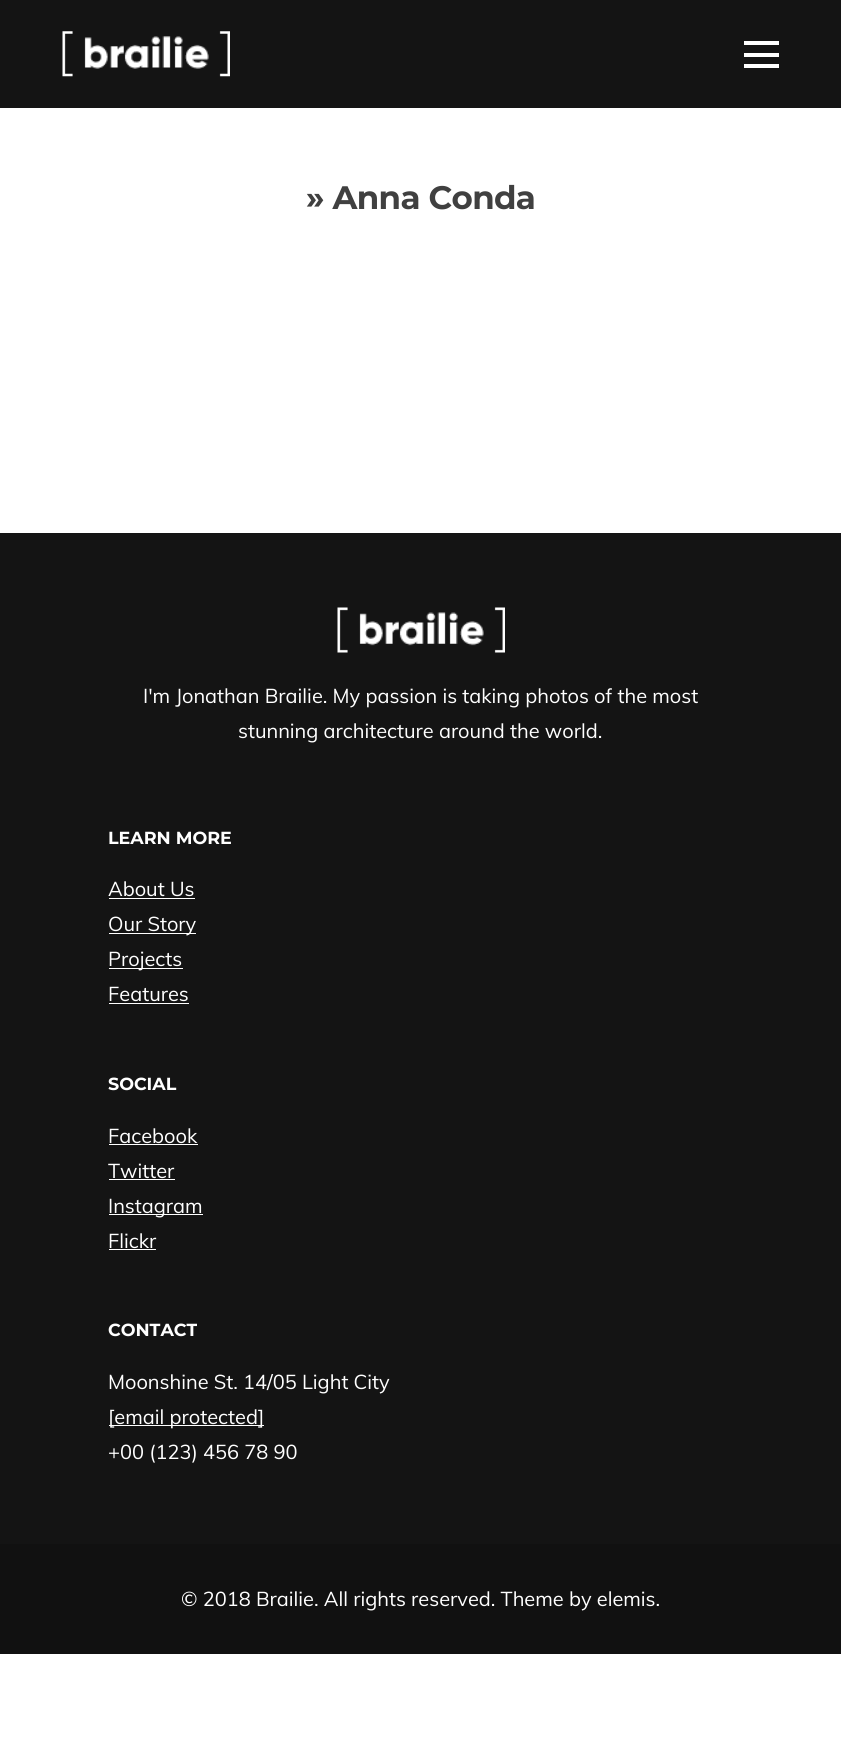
#include <cairo.h>
#include <math.h>
#include <stddef.h>


static void spaced_text(cairo_t *cr, double x, double y, const char *s, double letter, double word) {
    cairo_move_to(cr, x, y);
    while (*s) {
        char ch[5] = {0};
        int n = 0;
        do ch[n++] = *s++; while ((*s & 0xC0) == 0x80);
        cairo_show_text(cr, ch);
        cairo_rel_move_to(cr, letter + word * (*ch == ' '), 0);
    }
}

static void picture(cairo_t *cr, const char *path, double x, double y, double w, double h) {
    cairo_surface_t *image = cairo_image_surface_create_from_png(path);
    cairo_save(cr);
    cairo_set_source_surface(cr, image, x, y);
    cairo_rectangle(cr, x, y, w, h);
    cairo_fill(cr);
    cairo_restore(cr);
    cairo_surface_destroy(image);
}

int main(void) {
    cairo_surface_t *surface = cairo_image_surface_create(CAIRO_FORMAT_RGB24, 841, 1746);
    cairo_t *cr = cairo_create(surface);
    cairo_font_options_t *options = cairo_font_options_create();
    cairo_font_options_set_hint_metrics(options, CAIRO_HINT_METRICS_OFF);
    cairo_font_options_set_hint_style(options, CAIRO_HINT_STYLE_NONE);
    cairo_set_font_options(cr, options);
    cairo_set_miter_limit(cr, 4);
    cairo_set_source_rgb(cr, 1, 1, 1);
    cairo_paint(cr);
    cairo_set_source_rgb(cr, 0.082, 0.082, 0.082);
    cairo_rectangle(cr, 0, 0, 841, 108);
    cairo_fill(cr);
    picture(cr, "img1.png", 62, 31, 168, 46);
    cairo_set_source_rgb(cr, 1, 1, 1);
    cairo_rectangle(cr, 744, 41, 35, 4);
    cairo_fill(cr);
    cairo_rectangle(cr, 744, 53, 35, 4);
    cairo_fill(cr);
    cairo_rectangle(cr, 744, 64, 35, 4);
    cairo_fill(cr);
    cairo_select_font_face(cr, "Montserrat", CAIRO_FONT_SLANT_NORMAL, CAIRO_FONT_WEIGHT_BOLD);
    cairo_set_font_size(cr, 32.5);
    cairo_set_source_rgb(cr, 0.251, 0.251, 0.251);
    spaced_text(cr, 306, 209, "» Anna Conda", -0.6, 0);
    cairo_set_source_rgb(cr, 0.082, 0.082, 0.082);
    cairo_rectangle(cr, 0, 533, 841, 1011);
    cairo_fill(cr);
    picture(cr, "img2.png", 337, 607, 168, 46);
    cairo_select_font_face(cr, "Muli", CAIRO_FONT_SLANT_NORMAL, CAIRO_FONT_WEIGHT_NORMAL);
    cairo_set_font_size(cr, 20);
    cairo_set_source_rgb(cr, 1, 1, 1);
    cairo_move_to(cr, 143, 703);
    cairo_show_text(cr, "I'm Jonathan Brailie. My passion is taking photos of the most");
    cairo_move_to(cr, 238, 738);
    cairo_show_text(cr, "stunning architecture around the world.");
    cairo_select_font_face(cr, "Montserrat", CAIRO_FONT_SLANT_NORMAL, CAIRO_FONT_WEIGHT_BOLD);
    cairo_set_font_size(cr, 17.5);
    cairo_move_to(cr, 108, 844);
    cairo_show_text(cr, "LEARN MORE");
    cairo_select_font_face(cr, "Muli", CAIRO_FONT_SLANT_NORMAL, CAIRO_FONT_WEIGHT_NORMAL);
    cairo_set_font_size(cr, 20);
    cairo_move_to(cr, 108, 896);
    cairo_show_text(cr, "About Us");
    cairo_rectangle(cr, 109, 898, 86, 1);
    cairo_fill(cr);
    cairo_rectangle(cr, 109, 933, 87, 1);
    cairo_fill(cr);
    cairo_move_to(cr, 108, 931);
    cairo_show_text(cr, "Our Story");
    cairo_rectangle(cr, 109, 968, 74, 1);
    cairo_fill(cr);
    cairo_move_to(cr, 108, 966);
    cairo_show_text(cr, "Projects");
    cairo_move_to(cr, 108, 1001);
    cairo_show_text(cr, "Features");
    cairo_rectangle(cr, 109, 1003, 80, 1);
    cairo_fill(cr);
    cairo_select_font_face(cr, "Montserrat", CAIRO_FONT_SLANT_NORMAL, CAIRO_FONT_WEIGHT_BOLD);
    cairo_set_font_size(cr, 17.5);
    cairo_move_to(cr, 108, 1090);
    cairo_show_text(cr, "SOCIAL");
    cairo_select_font_face(cr, "Muli", CAIRO_FONT_SLANT_NORMAL, CAIRO_FONT_WEIGHT_NORMAL);
    cairo_set_font_size(cr, 20);
    cairo_move_to(cr, 108, 1143);
    cairo_show_text(cr, "Facebook");
    cairo_rectangle(cr, 109, 1144, 89, 1);
    cairo_fill(cr);
    cairo_move_to(cr, 108, 1178);
    cairo_show_text(cr, "Twitter");
    cairo_rectangle(cr, 109, 1179, 66, 1);
    cairo_fill(cr);
    cairo_rectangle(cr, 109, 1214, 94, 1);
    cairo_fill(cr);
    cairo_move_to(cr, 108, 1213);
    cairo_show_text(cr, "Instagram");
    cairo_move_to(cr, 108, 1248);
    cairo_show_text(cr, "Flickr");
    cairo_rectangle(cr, 109, 1249, 47, 1);
    cairo_fill(cr);
    cairo_select_font_face(cr, "Montserrat", CAIRO_FONT_SLANT_NORMAL, CAIRO_FONT_WEIGHT_BOLD);
    cairo_set_font_size(cr, 17.5);
    cairo_move_to(cr, 108, 1336);
    cairo_show_text(cr, "CONTACT");
    cairo_select_font_face(cr, "Muli", CAIRO_FONT_SLANT_NORMAL, CAIRO_FONT_WEIGHT_NORMAL);
    cairo_set_font_size(cr, 20);
    cairo_move_to(cr, 108, 1389);
    cairo_show_text(cr, "Moonshine St. 14/05 Light City");
    cairo_rectangle(cr, 109, 1425, 155, 1);
    cairo_fill(cr);
    cairo_move_to(cr, 108, 1424);
    cairo_show_text(cr, "[email protected]");
    cairo_move_to(cr, 108, 1459);
    cairo_show_text(cr, "+00 (123) 456 78 90");
    cairo_set_source_rgb(cr, 0.067, 0.067, 0.067);
    cairo_rectangle(cr, 0, 1544, 841, 110);
    cairo_fill(cr);
    cairo_set_source_rgb(cr, 1, 1, 1);
    cairo_move_to(cr, 181, 1606);
    cairo_show_text(cr, "© 2018 Brailie. All rights reserved. Theme by elemis.");
    cairo_surface_write_to_png(surface, "page.png");
    cairo_font_options_destroy(options);
    cairo_destroy(cr);
    cairo_surface_destroy(surface);
    return 0;
}
